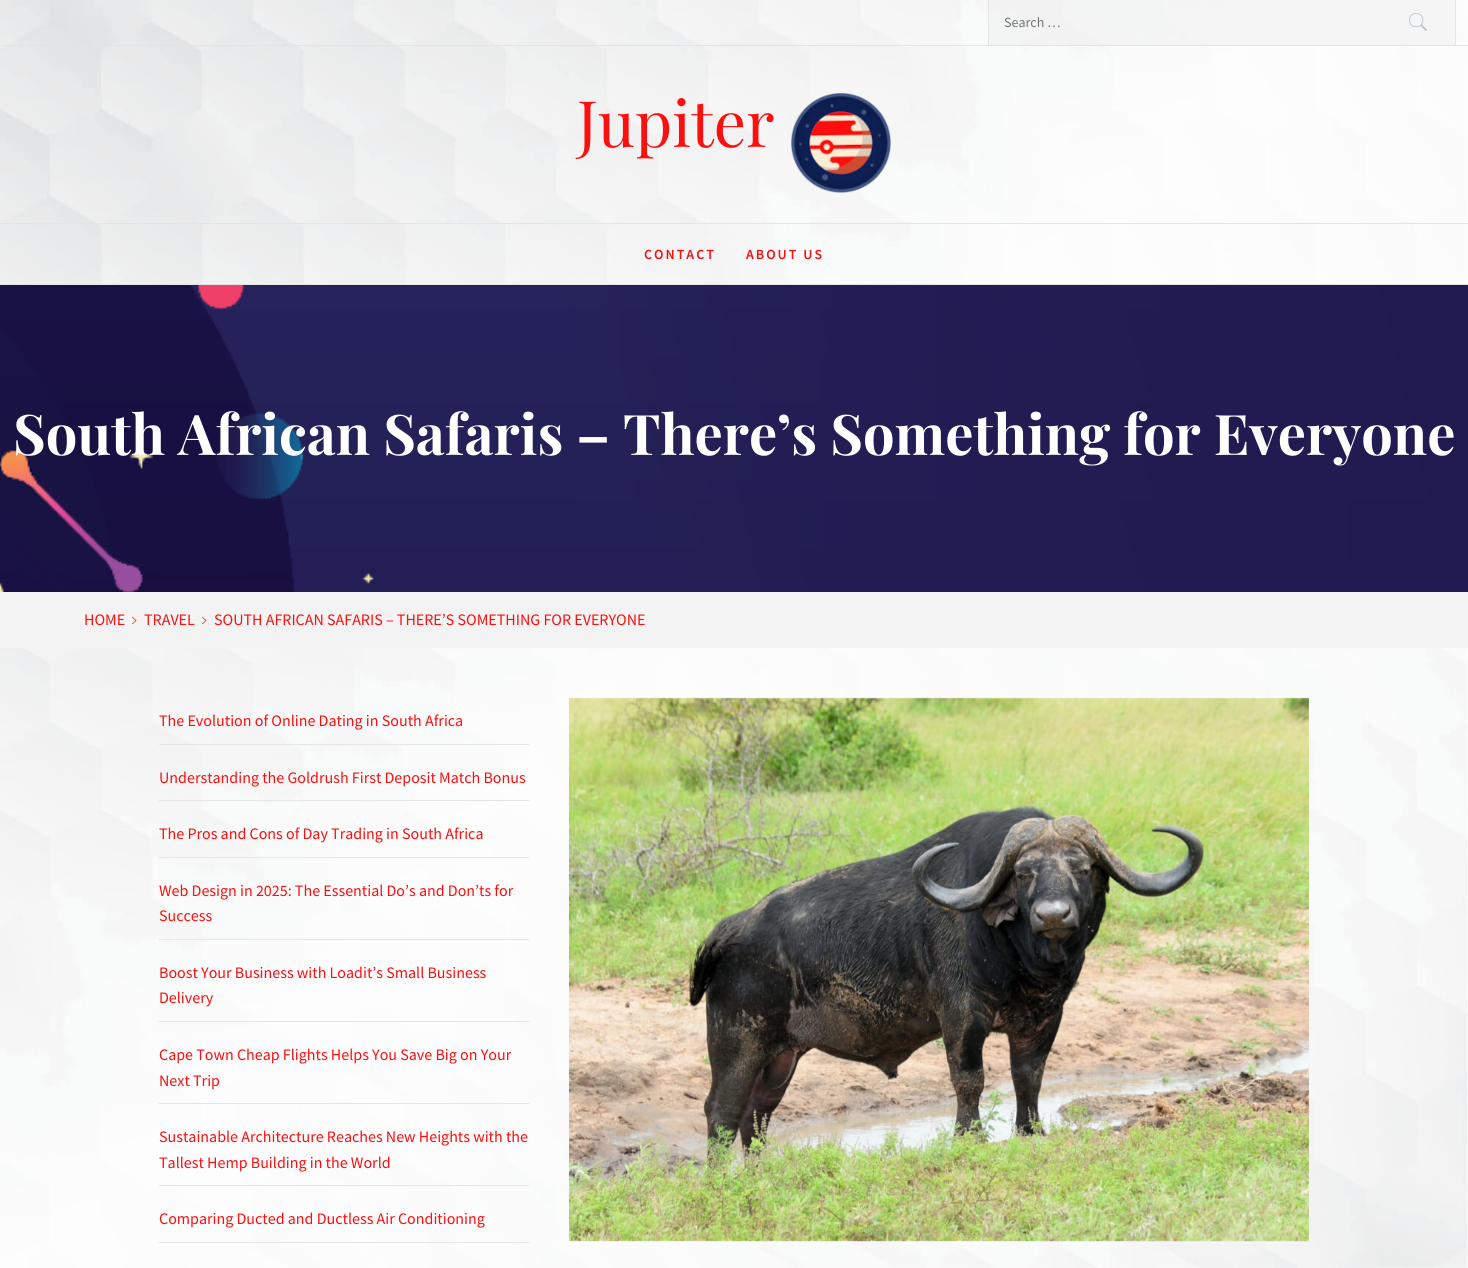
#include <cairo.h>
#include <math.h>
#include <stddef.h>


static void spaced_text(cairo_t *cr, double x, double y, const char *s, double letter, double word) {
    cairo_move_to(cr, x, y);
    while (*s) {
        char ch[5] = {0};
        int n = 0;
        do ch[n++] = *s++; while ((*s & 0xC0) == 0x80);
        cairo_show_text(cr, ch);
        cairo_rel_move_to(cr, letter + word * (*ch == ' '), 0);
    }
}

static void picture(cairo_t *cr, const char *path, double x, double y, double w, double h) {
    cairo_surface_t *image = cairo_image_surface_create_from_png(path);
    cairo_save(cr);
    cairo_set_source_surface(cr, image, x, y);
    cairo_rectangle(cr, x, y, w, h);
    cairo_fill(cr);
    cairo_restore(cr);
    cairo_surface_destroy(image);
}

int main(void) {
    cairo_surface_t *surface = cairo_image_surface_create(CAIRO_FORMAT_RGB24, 1468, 1268);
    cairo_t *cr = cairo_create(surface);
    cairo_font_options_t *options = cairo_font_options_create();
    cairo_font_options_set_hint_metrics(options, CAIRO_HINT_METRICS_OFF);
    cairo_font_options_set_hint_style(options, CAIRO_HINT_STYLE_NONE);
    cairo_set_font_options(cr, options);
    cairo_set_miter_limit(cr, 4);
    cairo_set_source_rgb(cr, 1, 1, 1);
    cairo_paint(cr);
    picture(cr, "img1.png", 0, 0, 1468, 1268);
    cairo_set_source_rgb(cr, 0.894, 0.894, 0.894);
    cairo_rectangle(cr, 0, 45, 1468, 1);
    cairo_fill(cr);
    cairo_set_source_rgba(cr, 0.933, 0.933, 0.933, 0.5);
    cairo_rectangle(cr, 989, 0, 466, 45);
    cairo_fill(cr);
    cairo_set_source_rgb(cr, 0.894, 0.894, 0.894);
    cairo_rectangle(cr, 1455, 0, 1, 45);
    cairo_fill(cr);
    cairo_rectangle(cr, 988, 0, 1, 45);
    cairo_fill(cr);
    cairo_select_font_face(cr, "Source Sans Pro", CAIRO_FONT_SLANT_NORMAL, CAIRO_FONT_WEIGHT_NORMAL);
    cairo_set_font_size(cr, 14);
    cairo_set_source_rgb(cr, 0.459, 0.459, 0.459);
    cairo_move_to(cr, 1004, 27);
    cairo_show_text(cr, "Search …");
    picture(cr, "img2.png", 1409, 13, 18, 18);
    cairo_select_font_face(cr, "Playfair Display", CAIRO_FONT_SLANT_NORMAL, CAIRO_FONT_WEIGHT_NORMAL);
    cairo_set_font_size(cr, 64);
    cairo_set_source_rgb(cr, 0.988, 0.059, 0.059);
    cairo_move_to(cr, 577, 147);
    cairo_show_text(cr, "Jupiter");
    picture(cr, "img3.png", 791, 93, 100, 100);
    cairo_set_source_rgb(cr, 0.894, 0.894, 0.894);
    cairo_rectangle(cr, 0, 223, 1468, 1);
    cairo_fill(cr);
    cairo_rectangle(cr, 0, 284, 1468, 1);
    cairo_fill(cr);
    cairo_select_font_face(cr, "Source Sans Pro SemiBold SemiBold", CAIRO_FONT_SLANT_NORMAL, CAIRO_FONT_WEIGHT_NORMAL);
    cairo_set_font_size(cr, 14);
    cairo_set_source_rgb(cr, 0.988, 0.059, 0.059);
    spaced_text(cr, 644, 259, "CONTACT", 2, 0);
    spaced_text(cr, 746, 259, "ABOUT US", 2, 0);
    picture(cr, "img4.png", 0, 285, 1468, 307);
    cairo_select_font_face(cr, "Playfair Display", CAIRO_FONT_SLANT_NORMAL, CAIRO_FONT_WEIGHT_BOLD);
    cairo_set_font_size(cr, 56);
    cairo_set_source_rgb(cr, 1, 1, 1);
    cairo_move_to(cr, 13, 455);
    cairo_show_text(cr, "South African Safaris – There’s Something for Everyone");
    cairo_set_source_rgb(cr, 0.953, 0.953, 0.953);
    cairo_rectangle(cr, 0, 592, 1468, 56);
    cairo_fill(cr);
    cairo_select_font_face(cr, "Source Sans Pro", CAIRO_FONT_SLANT_NORMAL, CAIRO_FONT_WEIGHT_NORMAL);
    cairo_set_font_size(cr, 16);
    cairo_set_source_rgb(cr, 0.988, 0.059, 0.059);
    cairo_move_to(cr, 84, 625);
    cairo_show_text(cr, "HOME");
    picture(cr, "img5.png", 132, 616, 5, 9);
    cairo_move_to(cr, 144, 625);
    cairo_show_text(cr, "TRAVEL");
    picture(cr, "img5.png", 202, 616, 5, 9);
    cairo_move_to(cr, 214, 625);
    cairo_show_text(cr, "SOUTH AFRICAN SAFARIS – THERE’S SOMETHING FOR EVERYONE");
    cairo_set_source_rgb(cr, 0.898, 0.898, 0.898);
    cairo_rectangle(cr, 159, 744, 370, 1);
    cairo_fill(cr);
    cairo_set_source_rgb(cr, 0.988, 0.059, 0.059);
    cairo_move_to(cr, 159, 726);
    cairo_show_text(cr, "The Evolution of Online Dating in South Africa");
    cairo_set_source_rgb(cr, 0.898, 0.898, 0.898);
    cairo_rectangle(cr, 159, 800, 370, 1);
    cairo_fill(cr);
    cairo_set_source_rgb(cr, 0.988, 0.059, 0.059);
    cairo_move_to(cr, 159, 783);
    cairo_show_text(cr, "Understanding the Goldrush First Deposit Match Bonus");
    cairo_set_source_rgb(cr, 0.898, 0.898, 0.898);
    cairo_rectangle(cr, 159, 857, 370, 1);
    cairo_fill(cr);
    cairo_set_source_rgb(cr, 0.988, 0.059, 0.059);
    cairo_move_to(cr, 159, 839);
    cairo_show_text(cr, "The Pros and Cons of Day Trading in South Africa");
    cairo_set_source_rgb(cr, 0.898, 0.898, 0.898);
    cairo_rectangle(cr, 159, 939, 370, 1);
    cairo_fill(cr);
    cairo_set_source_rgb(cr, 0.988, 0.059, 0.059);
    cairo_move_to(cr, 159, 896);
    cairo_show_text(cr, "Web Design in 2025: The Essential Do’s and Don’ts for");
    cairo_move_to(cr, 159, 921);
    cairo_show_text(cr, "Success");
    cairo_set_source_rgb(cr, 0.898, 0.898, 0.898);
    cairo_rectangle(cr, 159, 1021, 370, 1);
    cairo_fill(cr);
    cairo_set_source_rgb(cr, 0.988, 0.059, 0.059);
    cairo_move_to(cr, 159, 978);
    cairo_show_text(cr, "Boost Your Business with Loadit’s Small Business");
    cairo_move_to(cr, 159, 1003);
    cairo_show_text(cr, "Delivery");
    cairo_set_source_rgb(cr, 0.898, 0.898, 0.898);
    cairo_rectangle(cr, 159, 1103, 370, 1);
    cairo_fill(cr);
    cairo_set_source_rgb(cr, 0.988, 0.059, 0.059);
    cairo_move_to(cr, 159, 1060);
    cairo_show_text(cr, "Cape Town Cheap Flights Helps You Save Big on Your");
    cairo_move_to(cr, 159, 1086);
    cairo_show_text(cr, "Next Trip");
    cairo_set_source_rgb(cr, 0.898, 0.898, 0.898);
    cairo_rectangle(cr, 159, 1185, 370, 1);
    cairo_fill(cr);
    cairo_set_source_rgb(cr, 0.988, 0.059, 0.059);
    cairo_move_to(cr, 159, 1142);
    cairo_show_text(cr, "Sustainable Architecture Reaches New Heights with the");
    cairo_move_to(cr, 159, 1168);
    cairo_show_text(cr, "Tallest Hemp Building in the World");
    cairo_set_source_rgb(cr, 0.898, 0.898, 0.898);
    cairo_rectangle(cr, 159, 1242, 370, 1);
    cairo_fill(cr);
    cairo_set_source_rgb(cr, 0.988, 0.059, 0.059);
    cairo_move_to(cr, 159, 1224);
    cairo_show_text(cr, "Comparing Ducted and Ductless Air Conditioning");
    picture(cr, "img6.png", 569, 697, 740, 545);
    cairo_surface_write_to_png(surface, "page.png");
    cairo_font_options_destroy(options);
    cairo_destroy(cr);
    cairo_surface_destroy(surface);
    return 0;
}
